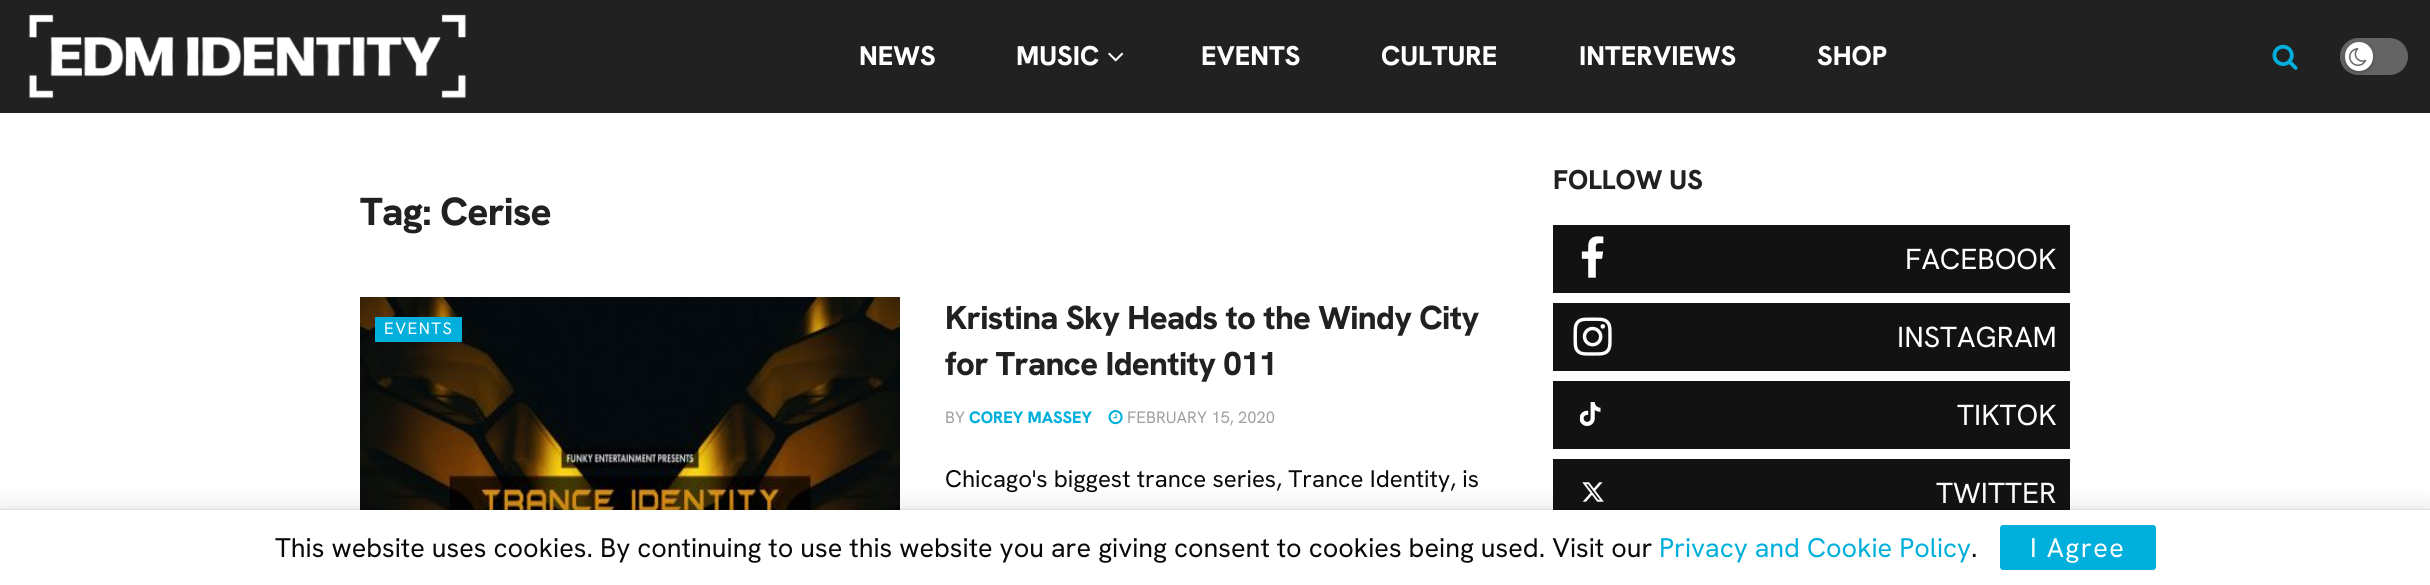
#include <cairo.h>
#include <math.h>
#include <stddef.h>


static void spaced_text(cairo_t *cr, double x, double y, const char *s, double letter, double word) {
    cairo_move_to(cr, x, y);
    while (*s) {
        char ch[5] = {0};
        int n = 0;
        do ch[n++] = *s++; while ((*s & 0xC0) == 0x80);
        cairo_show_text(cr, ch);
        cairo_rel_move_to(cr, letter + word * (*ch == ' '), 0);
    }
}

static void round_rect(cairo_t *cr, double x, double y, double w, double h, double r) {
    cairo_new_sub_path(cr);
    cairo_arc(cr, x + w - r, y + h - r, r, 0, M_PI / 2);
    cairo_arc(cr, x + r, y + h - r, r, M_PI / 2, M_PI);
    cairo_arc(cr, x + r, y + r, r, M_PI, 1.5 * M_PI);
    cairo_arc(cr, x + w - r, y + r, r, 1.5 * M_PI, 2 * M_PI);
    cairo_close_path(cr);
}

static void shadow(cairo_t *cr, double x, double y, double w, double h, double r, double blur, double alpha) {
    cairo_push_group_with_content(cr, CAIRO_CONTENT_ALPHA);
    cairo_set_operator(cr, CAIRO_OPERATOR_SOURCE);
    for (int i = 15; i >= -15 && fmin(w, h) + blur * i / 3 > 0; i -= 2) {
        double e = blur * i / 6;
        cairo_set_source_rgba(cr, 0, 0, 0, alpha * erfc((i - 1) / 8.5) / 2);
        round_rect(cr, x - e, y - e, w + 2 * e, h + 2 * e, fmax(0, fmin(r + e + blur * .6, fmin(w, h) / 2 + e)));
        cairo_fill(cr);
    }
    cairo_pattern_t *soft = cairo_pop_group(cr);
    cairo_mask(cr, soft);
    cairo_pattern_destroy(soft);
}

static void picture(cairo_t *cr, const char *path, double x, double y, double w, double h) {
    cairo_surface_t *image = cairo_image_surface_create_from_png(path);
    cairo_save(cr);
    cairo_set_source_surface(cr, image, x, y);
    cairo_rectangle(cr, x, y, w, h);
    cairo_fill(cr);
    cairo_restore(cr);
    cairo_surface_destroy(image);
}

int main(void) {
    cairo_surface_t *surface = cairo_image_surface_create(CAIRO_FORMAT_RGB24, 2430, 585);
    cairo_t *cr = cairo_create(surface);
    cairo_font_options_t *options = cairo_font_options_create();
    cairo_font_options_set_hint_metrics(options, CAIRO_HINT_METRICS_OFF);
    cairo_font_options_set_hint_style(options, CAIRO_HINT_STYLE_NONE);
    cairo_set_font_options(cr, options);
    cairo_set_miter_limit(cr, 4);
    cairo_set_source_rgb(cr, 1, 1, 1);
    cairo_paint(cr);
    cairo_set_source_rgb(cr, 0.129, 0.129, 0.129);
    cairo_rectangle(cr, 0, 0, 2430, 113);
    cairo_fill(cr);
    picture(cr, "img1.png", 28, 14, 439, 85);
    cairo_select_font_face(cr, "Hanken Grotesk ExtraBold", CAIRO_FONT_SLANT_NORMAL, CAIRO_FONT_WEIGHT_NORMAL);
    cairo_set_font_size(cr, 27);
    cairo_set_source_rgb(cr, 1, 1, 1);
    cairo_move_to(cr, 859, 65);
    cairo_show_text(cr, "NEWS");
    cairo_move_to(cr, 1016, 65);
    cairo_show_text(cr, "MUSIC");
    picture(cr, "img2.png", 1108, 52, 16, 10);
    cairo_move_to(cr, 1201, 65);
    cairo_show_text(cr, "EVENTS");
    cairo_move_to(cr, 1381, 65);
    cairo_show_text(cr, "CULTURE");
    cairo_move_to(cr, 1579, 65);
    cairo_show_text(cr, "INTERVIEWS");
    cairo_move_to(cr, 1817, 65);
    cairo_show_text(cr, "SHOP");
    picture(cr, "img3.png", 2272, 44, 26, 26);
    cairo_set_source_rgb(cr, 0.392, 0.392, 0.392);
    round_rect(cr, 2340, 38, 68, 37, 18.5);
    cairo_fill(cr);
    cairo_set_source_rgb(cr, 0, 0, 0);
    shadow(cr, 2345, 44, 28, 28, 14, 2, 0.3);
    cairo_set_source_rgb(cr, 1, 1, 1);
    round_rect(cr, 2345, 42, 28, 29, 14);
    cairo_fill(cr);
    picture(cr, "img4.png", 2349, 48, 18, 18);
    cairo_set_font_size(cr, 39);
    cairo_set_source_rgb(cr, 0.129, 0.129, 0.129);
    spaced_text(cr, 360, 225, "Tag: Cerise", -0.75, 0);
    picture(cr, "img5.png", 360, 297, 540, 213);
    cairo_set_source_rgb(cr, 0, 0.686, 0.859);
    cairo_rectangle(cr, 375, 317, 87, 25);
    cairo_fill(cr);
    cairo_select_font_face(cr, "Hanken Grotesk", CAIRO_FONT_SLANT_NORMAL, CAIRO_FONT_WEIGHT_NORMAL);
    cairo_set_font_size(cr, 16.5);
    cairo_set_source_rgb(cr, 1, 1, 1);
    spaced_text(cr, 384, 334, "EVENTS", 1.5, 0);
    cairo_select_font_face(cr, "Hanken Grotesk ExtraBold", CAIRO_FONT_SLANT_NORMAL, CAIRO_FONT_WEIGHT_NORMAL);
    cairo_set_font_size(cr, 33);
    cairo_set_source_rgb(cr, 0.129, 0.129, 0.129);
    spaced_text(cr, 945, 329, "Kristina Sky Heads to the Windy City", -0.65, 0);
    spaced_text(cr, 945, 375, "for Trance Identity 011", -0.65, 0);
    cairo_select_font_face(cr, "Hanken Grotesk", CAIRO_FONT_SLANT_NORMAL, CAIRO_FONT_WEIGHT_NORMAL);
    cairo_set_font_size(cr, 16.5);
    cairo_set_source_rgb(cr, 0.627, 0.627, 0.627);
    cairo_move_to(cr, 945, 423);
    cairo_show_text(cr, "BY");
    cairo_select_font_face(cr, "Hanken Grotesk ExtraBold", CAIRO_FONT_SLANT_NORMAL, CAIRO_FONT_WEIGHT_NORMAL);
    cairo_set_source_rgb(cr, 0, 0.686, 0.859);
    cairo_move_to(cr, 969, 423);
    cairo_show_text(cr, "COREY MASSEY");
    picture(cr, "img6.png", 1108, 410, 15, 15);
    cairo_select_font_face(cr, "Hanken Grotesk", CAIRO_FONT_SLANT_NORMAL, CAIRO_FONT_WEIGHT_NORMAL);
    cairo_set_source_rgb(cr, 0.627, 0.627, 0.627);
    cairo_move_to(cr, 1127, 423);
    cairo_show_text(cr, "FEBRUARY 15, 2020");
    cairo_set_font_size(cr, 24);
    cairo_set_source_rgb(cr, 0.039, 0.039, 0.039);
    cairo_move_to(cr, 945, 487);
    cairo_show_text(cr, "Chicago's biggest trance series, Trance Identity, is");
    cairo_select_font_face(cr, "Hanken Grotesk ExtraBold", CAIRO_FONT_SLANT_NORMAL, CAIRO_FONT_WEIGHT_NORMAL);
    cairo_set_font_size(cr, 27);
    cairo_set_source_rgb(cr, 0.129, 0.129, 0.129);
    cairo_move_to(cr, 1553, 189);
    cairo_show_text(cr, "FOLLOW US");
    cairo_set_source_rgb(cr, 0.071, 0.071, 0.071);
    cairo_rectangle(cr, 1553, 225, 517, 68);
    cairo_fill(cr);
    picture(cr, "img7.png", 1581, 236, 23, 42);
    cairo_select_font_face(cr, "Hanken Grotesk", CAIRO_FONT_SLANT_NORMAL, CAIRO_FONT_WEIGHT_NORMAL);
    cairo_set_font_size(cr, 29);
    cairo_set_source_rgb(cr, 1, 1, 1);
    cairo_move_to(cr, 1905, 269);
    cairo_show_text(cr, "FACEBOOK");
    cairo_set_source_rgb(cr, 0.071, 0.071, 0.071);
    cairo_rectangle(cr, 1553, 303, 517, 68);
    cairo_fill(cr);
    picture(cr, "img8.png", 1573, 317, 39, 39);
    cairo_set_source_rgb(cr, 1, 1, 1);
    cairo_move_to(cr, 1897, 347);
    cairo_show_text(cr, "INSTAGRAM");
    cairo_set_source_rgb(cr, 0.071, 0.071, 0.071);
    cairo_rectangle(cr, 1553, 381, 517, 68);
    cairo_fill(cr);
    picture(cr, "img9.png", 1580, 402, 21, 24);
    cairo_set_source_rgb(cr, 1, 1, 1);
    cairo_move_to(cr, 1957, 425);
    cairo_show_text(cr, "TIKTOK");
    cairo_set_source_rgb(cr, 0.071, 0.071, 0.071);
    cairo_rectangle(cr, 1553, 459, 517, 51);
    cairo_fill(cr);
    picture(cr, "img10.png", 1582, 482, 22, 20);
    cairo_set_source_rgb(cr, 1, 1, 1);
    cairo_move_to(cr, 1936, 503);
    cairo_show_text(cr, "TWITTER");
    cairo_set_source_rgb(cr, 0, 0, 0);
    shadow(cr, 0, 513, 2430, 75, 0, 15, 0.15);
    shadow(cr, 0, 510, 2430, 75, 0, 1, 0.2);
    cairo_set_source_rgb(cr, 1, 1, 1);
    cairo_rectangle(cr, 0, 510, 2430, 75);
    cairo_fill(cr);
    cairo_set_font_size(cr, 27);
    cairo_set_source_rgb(cr, 0.039, 0.039, 0.039);
    cairo_move_to(cr, 275, 557);
    cairo_show_text(cr, "This website uses cookies. By continuing to use this website you are giving consent to cookies being used. Visit our");
    cairo_set_source_rgb(cr, 0, 0.686, 0.859);
    cairo_move_to(cr, 1659, 557);
    cairo_show_text(cr, "Privacy and Cookie Policy");
    cairo_set_source_rgb(cr, 0.039, 0.039, 0.039);
    cairo_move_to(cr, 1971, 557);
    cairo_show_text(cr, ".");
    cairo_set_source_rgb(cr, 0, 0.686, 0.859);
    round_rect(cr, 2000, 525, 156, 45, 3);
    cairo_fill(cr);
    cairo_set_source_rgb(cr, 1, 1, 1);
    spaced_text(cr, 2030, 557, "I Agree", 1.5, 0);
    cairo_surface_write_to_png(surface, "page.png");
    cairo_font_options_destroy(options);
    cairo_destroy(cr);
    cairo_surface_destroy(surface);
    return 0;
}
